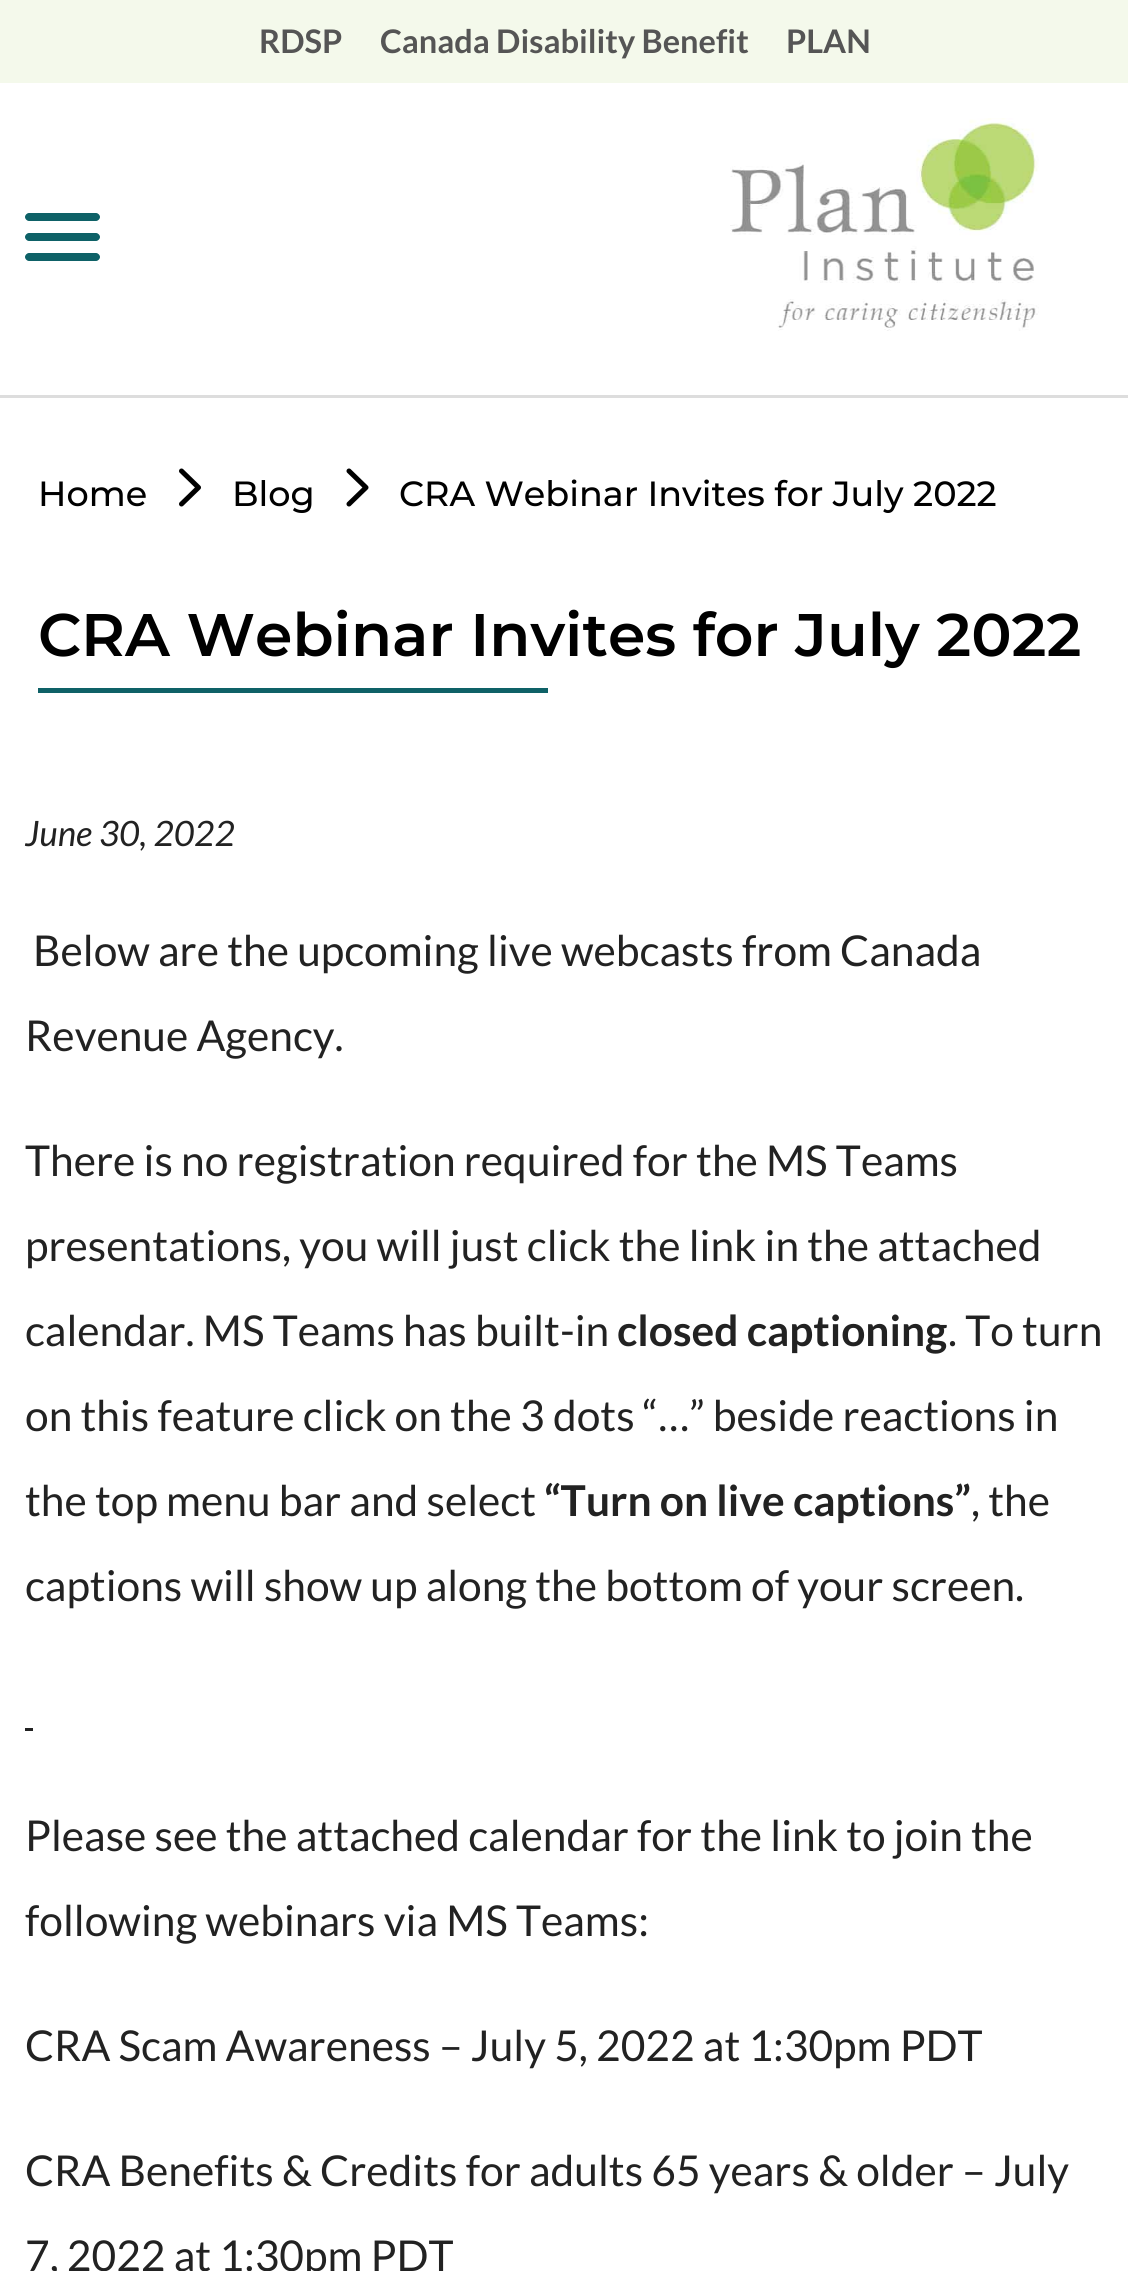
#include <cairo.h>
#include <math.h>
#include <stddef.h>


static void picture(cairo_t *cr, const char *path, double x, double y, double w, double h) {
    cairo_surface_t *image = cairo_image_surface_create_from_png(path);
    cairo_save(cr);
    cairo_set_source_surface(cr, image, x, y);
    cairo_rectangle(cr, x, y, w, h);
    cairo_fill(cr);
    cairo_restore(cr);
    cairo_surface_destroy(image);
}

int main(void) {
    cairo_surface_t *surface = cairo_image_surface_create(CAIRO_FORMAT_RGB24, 1128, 2271);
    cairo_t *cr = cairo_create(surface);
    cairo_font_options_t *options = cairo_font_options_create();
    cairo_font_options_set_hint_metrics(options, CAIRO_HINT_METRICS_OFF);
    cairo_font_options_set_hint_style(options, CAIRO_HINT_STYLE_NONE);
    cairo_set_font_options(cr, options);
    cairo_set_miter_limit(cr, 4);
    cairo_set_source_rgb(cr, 1, 1, 1);
    cairo_paint(cr);
    cairo_set_source_rgb(cr, 0.867, 0.867, 0.867);
    cairo_rectangle(cr, 0, 395, 1128, 3);
    cairo_fill(cr);
    cairo_set_source_rgb(cr, 0.957, 0.973, 0.918);
    cairo_rectangle(cr, 0, 0, 1128, 83);
    cairo_fill(cr);
    cairo_select_font_face(cr, "Lato", CAIRO_FONT_SLANT_NORMAL, CAIRO_FONT_WEIGHT_BOLD);
    cairo_set_font_size(cr, 32.5);
    cairo_set_source_rgb(cr, 0.333, 0.333, 0.333);
    cairo_move_to(cr, 259, 53);
    cairo_show_text(cr, "RDSP");
    cairo_move_to(cr, 380, 53);
    cairo_show_text(cr, "Canada Disability Benefit");
    cairo_move_to(cr, 786, 53);
    cairo_show_text(cr, "PLAN");
    cairo_set_source_rgb(cr, 0.055, 0.38, 0.404);
    cairo_new_path(cr);
    cairo_move_to(cr, 29, 213);
    cairo_line_to(cr, 63, 213);
    cairo_line_to(cr, 63, 221);
    cairo_line_to(cr, 29, 221);
    cairo_curve_to(cr, 27, 221, 25, 219, 25, 217);
    cairo_curve_to(cr, 25, 215, 27, 213, 29, 213);
    cairo_close_path(cr);
    cairo_fill(cr);
    cairo_new_path(cr);
    cairo_move_to(cr, 63, 213);
    cairo_line_to(cr, 96, 213);
    cairo_curve_to(cr, 98, 213, 100, 215, 100, 217);
    cairo_curve_to(cr, 100, 219, 98, 221, 96, 221);
    cairo_line_to(cr, 63, 221);
    cairo_close_path(cr);
    cairo_fill(cr);
    cairo_new_path(cr);
    cairo_move_to(cr, 29, 233);
    cairo_line_to(cr, 63, 233);
    cairo_line_to(cr, 63, 241);
    cairo_line_to(cr, 29, 241);
    cairo_curve_to(cr, 27, 241, 25, 239, 25, 237);
    cairo_curve_to(cr, 25, 235, 27, 233, 29, 233);
    cairo_close_path(cr);
    cairo_fill(cr);
    cairo_new_path(cr);
    cairo_move_to(cr, 63, 233);
    cairo_line_to(cr, 96, 233);
    cairo_curve_to(cr, 98, 233, 100, 235, 100, 237);
    cairo_curve_to(cr, 100, 239, 98, 241, 96, 241);
    cairo_line_to(cr, 63, 241);
    cairo_close_path(cr);
    cairo_fill(cr);
    cairo_new_path(cr);
    cairo_move_to(cr, 29, 253);
    cairo_line_to(cr, 63, 253);
    cairo_line_to(cr, 63, 261);
    cairo_line_to(cr, 29, 261);
    cairo_curve_to(cr, 27, 261, 25, 259, 25, 257);
    cairo_curve_to(cr, 25, 255, 27, 253, 29, 253);
    cairo_close_path(cr);
    cairo_fill(cr);
    cairo_new_path(cr);
    cairo_move_to(cr, 63, 253);
    cairo_line_to(cr, 96, 253);
    cairo_curve_to(cr, 98, 253, 100, 255, 100, 257);
    cairo_curve_to(cr, 100, 259, 98, 261, 96, 261);
    cairo_line_to(cr, 63, 261);
    cairo_close_path(cr);
    cairo_fill(cr);
    picture(cr, "img1.png", 730, 118, 309, 213);
    cairo_select_font_face(cr, "Montserrat Medium", CAIRO_FONT_SLANT_NORMAL, CAIRO_FONT_WEIGHT_NORMAL);
    cairo_set_font_size(cr, 35);
    cairo_set_source_rgb(cr, 0, 0, 0);
    cairo_move_to(cr, 38, 506);
    cairo_show_text(cr, "Home");
    cairo_new_path(cr);
    cairo_move_to(cr, 181.5, 471);
    cairo_line_to(cr, 198.5, 487.5);
    cairo_line_to(cr, 181.5, 504);
    cairo_set_line_width(cr, 5);
    cairo_set_line_cap(cr, CAIRO_LINE_CAP_ROUND);
    cairo_set_line_join(cr, CAIRO_LINE_JOIN_ROUND);
    cairo_stroke(cr);
    cairo_move_to(cr, 232, 506);
    cairo_show_text(cr, "Blog");
    cairo_new_path(cr);
    cairo_move_to(cr, 349, 471);
    cairo_line_to(cr, 366, 487.5);
    cairo_line_to(cr, 349, 504);
    cairo_stroke(cr);
    cairo_move_to(cr, 399, 506);
    cairo_show_text(cr, "CRA Webinar Invites for July 2022");
    cairo_select_font_face(cr, "Montserrat SemiBold", CAIRO_FONT_SLANT_NORMAL, CAIRO_FONT_WEIGHT_NORMAL);
    cairo_set_font_size(cr, 60);
    cairo_move_to(cr, 38, 656);
    cairo_show_text(cr, "CRA Webinar Invites for July 2022");
    cairo_set_source_rgb(cr, 0.055, 0.38, 0.404);
    cairo_rectangle(cr, 38, 688, 510, 5);
    cairo_fill(cr);
    cairo_select_font_face(cr, "Lato", CAIRO_FONT_SLANT_ITALIC, CAIRO_FONT_WEIGHT_NORMAL);
    cairo_set_font_size(cr, 35);
    cairo_set_source_rgb(cr, 0.133, 0.133, 0.133);
    cairo_move_to(cr, 25, 846);
    cairo_show_text(cr, "June 30, 2022");
    cairo_select_font_face(cr, "Lato", CAIRO_FONT_SLANT_NORMAL, CAIRO_FONT_WEIGHT_NORMAL);
    cairo_set_font_size(cr, 42.5);
    cairo_move_to(cr, 33, 966);
    cairo_show_text(cr, "Below are the upcoming live webcasts from Canada");
    cairo_move_to(cr, 25, 1051);
    cairo_show_text(cr, "Revenue Agency.");
    cairo_move_to(cr, 25, 1176);
    cairo_show_text(cr, "There is no registration required for the MS Teams");
    cairo_move_to(cr, 25, 1261);
    cairo_show_text(cr, "presentations, you will just click the link in the attached");
    cairo_move_to(cr, 25, 1346);
    cairo_show_text(cr, "calendar. MS Teams has built-in");
    cairo_select_font_face(cr, "Lato", CAIRO_FONT_SLANT_NORMAL, CAIRO_FONT_WEIGHT_BOLD);
    cairo_move_to(cr, 617, 1346);
    cairo_show_text(cr, "closed captioning");
    cairo_select_font_face(cr, "Lato", CAIRO_FONT_SLANT_NORMAL, CAIRO_FONT_WEIGHT_NORMAL);
    cairo_move_to(cr, 948, 1346);
    cairo_show_text(cr, ". To turn");
    cairo_move_to(cr, 25, 1431);
    cairo_show_text(cr, "on this feature click on the 3 dots “…” beside reactions in");
    cairo_move_to(cr, 25, 1516);
    cairo_show_text(cr, "the top menu bar and select");
    cairo_select_font_face(cr, "Lato", CAIRO_FONT_SLANT_NORMAL, CAIRO_FONT_WEIGHT_BOLD);
    cairo_move_to(cr, 544, 1516);
    cairo_show_text(cr, "“Turn on live captions”");
    cairo_select_font_face(cr, "Lato", CAIRO_FONT_SLANT_NORMAL, CAIRO_FONT_WEIGHT_NORMAL);
    cairo_move_to(cr, 971, 1516);
    cairo_show_text(cr, ", the");
    cairo_move_to(cr, 25, 1601);
    cairo_show_text(cr, "captions will show up along the bottom of your screen.");
    cairo_rectangle(cr, 25, 1728, 8, 3);
    cairo_fill(cr);
    cairo_move_to(cr, 25, 1851);
    cairo_show_text(cr, "Please see the attached calendar for the link to join the");
    cairo_move_to(cr, 25, 1936);
    cairo_show_text(cr, "following webinars via MS Teams:");
    cairo_move_to(cr, 25, 2061);
    cairo_show_text(cr, "CRA Scam Awareness – July 5, 2022 at 1:30pm PDT");
    cairo_move_to(cr, 25, 2186);
    cairo_show_text(cr, "CRA Benefits & Credits for adults 65 years & older – July");
    cairo_move_to(cr, 25, 2271);
    cairo_show_text(cr, "7, 2022 at 1:30pm PDT");
    cairo_surface_write_to_png(surface, "page.png");
    cairo_font_options_destroy(options);
    cairo_destroy(cr);
    cairo_surface_destroy(surface);
    return 0;
}
